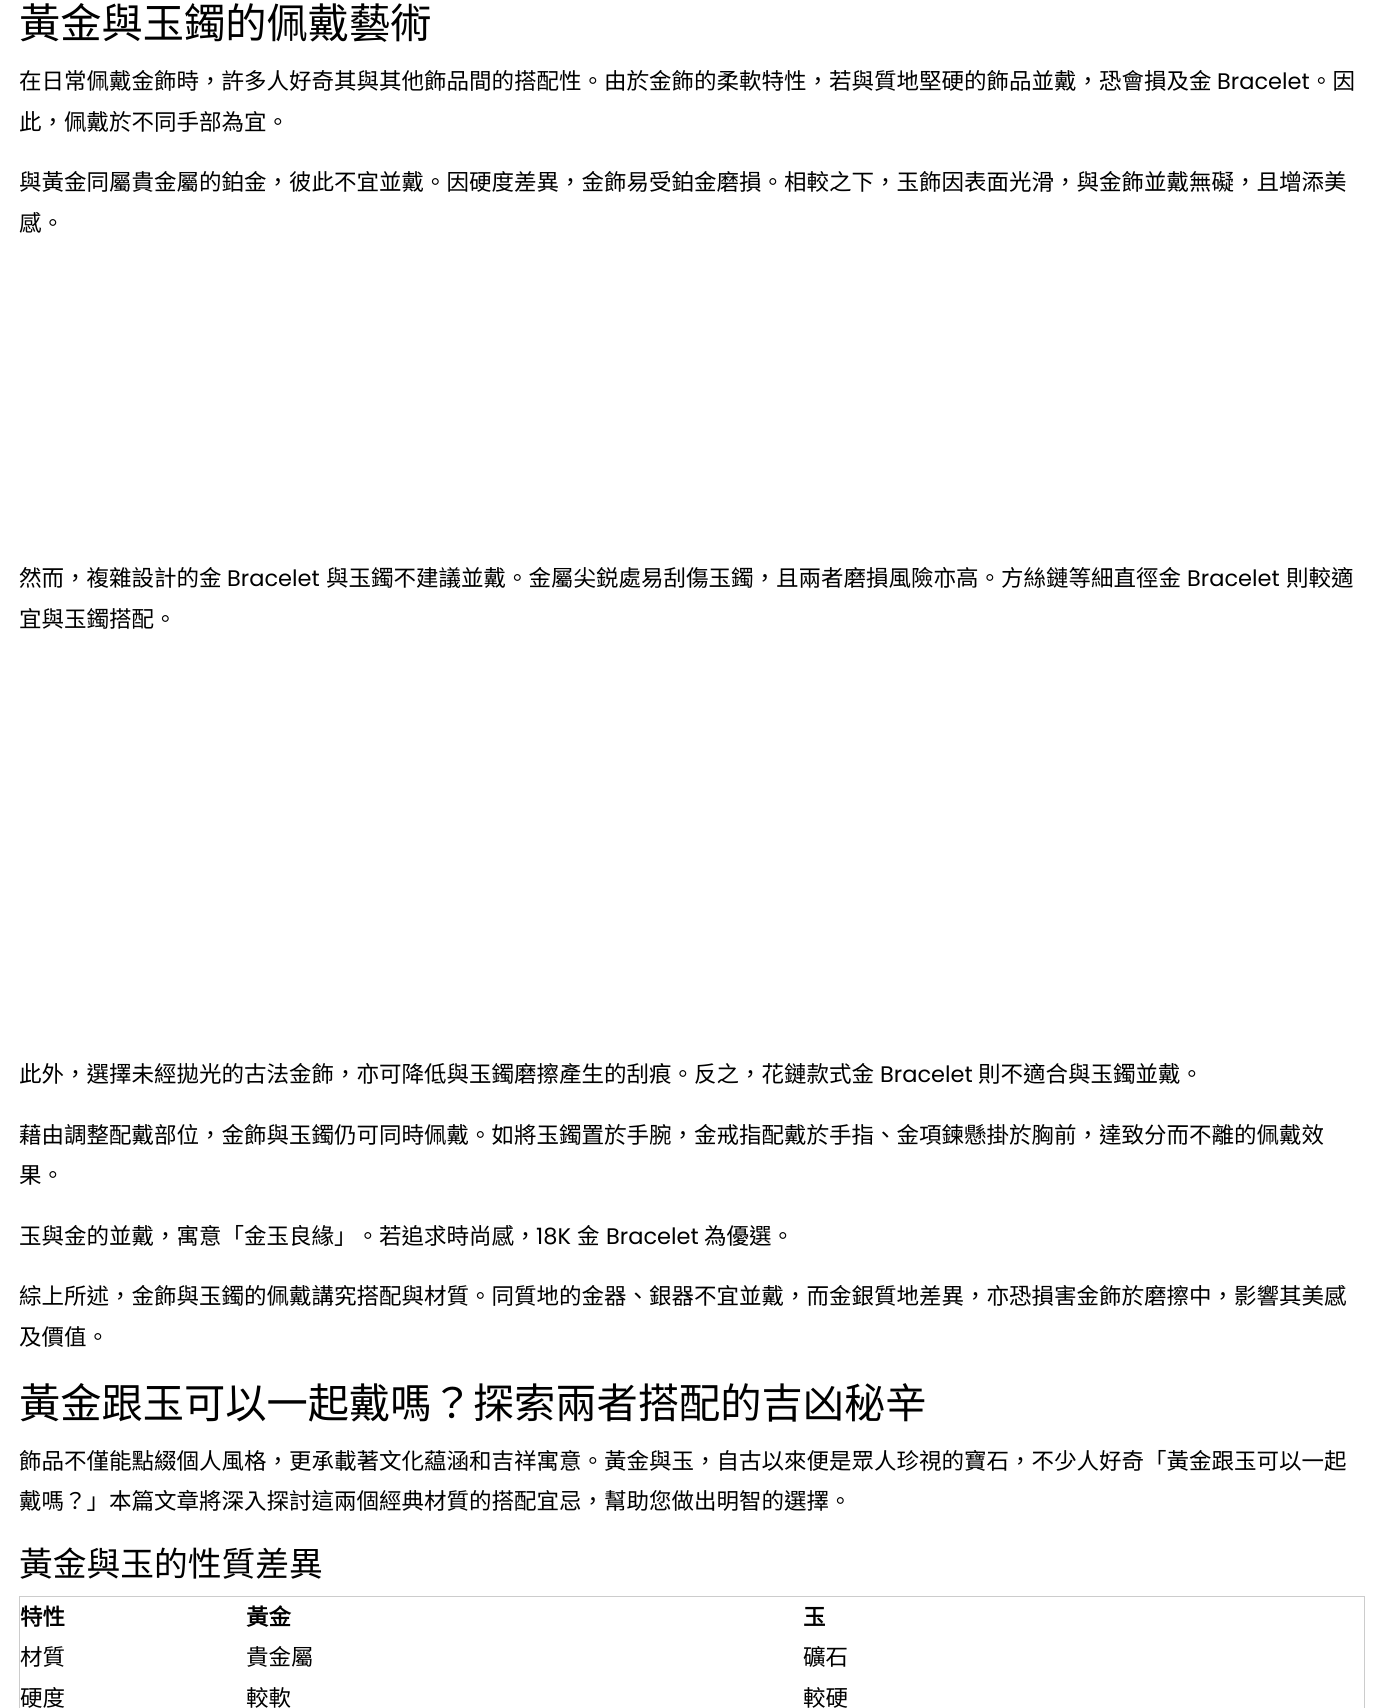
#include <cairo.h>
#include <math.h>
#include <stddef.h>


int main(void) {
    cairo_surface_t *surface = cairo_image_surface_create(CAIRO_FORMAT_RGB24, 1383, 1708);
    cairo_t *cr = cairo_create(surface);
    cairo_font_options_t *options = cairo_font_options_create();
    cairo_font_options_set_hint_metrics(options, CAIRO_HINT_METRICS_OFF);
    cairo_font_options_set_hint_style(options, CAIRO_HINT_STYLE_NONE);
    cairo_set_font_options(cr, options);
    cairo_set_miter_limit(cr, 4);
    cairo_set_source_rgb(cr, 1, 1, 1);
    cairo_paint(cr);
    cairo_select_font_face(cr, "Noto Sans CJK HK", CAIRO_FONT_SLANT_NORMAL, CAIRO_FONT_WEIGHT_NORMAL);
    cairo_set_font_size(cr, 41.25);
    cairo_set_source_rgb(cr, 0, 0, 0);
    cairo_move_to(cr, 19, 38);
    cairo_show_text(cr, "黃金與玉鐲的佩戴藝術");
    cairo_set_font_size(cr, 22.5);
    cairo_move_to(cr, 19, 89);
    cairo_show_text(cr, "在日常佩戴金飾時，許多人好奇其與其他飾品間的搭配性。由於金飾的柔軟特性，若與質地堅硬的飾品並戴，恐會損及金");
    cairo_select_font_face(cr, "Poppins", CAIRO_FONT_SLANT_NORMAL, CAIRO_FONT_WEIGHT_NORMAL);
    cairo_move_to(cr, 1217, 89);
    cairo_show_text(cr, "Bracelet");
    cairo_select_font_face(cr, "Noto Sans CJK HK", CAIRO_FONT_SLANT_NORMAL, CAIRO_FONT_WEIGHT_NORMAL);
    cairo_move_to(cr, 1310, 89);
    cairo_show_text(cr, "。因");
    cairo_move_to(cr, 19, 130);
    cairo_show_text(cr, "此，佩戴於不同手部為宜。");
    cairo_move_to(cr, 19, 190);
    cairo_show_text(cr, "與黃金同屬貴金屬的鉑金，彼此不宜並戴。因硬度差異，金飾易受鉑金磨損。相較之下，玉飾因表面光滑，與金飾並戴無礙，且增添美");
    cairo_move_to(cr, 19, 231);
    cairo_show_text(cr, "感。");
    cairo_move_to(cr, 19, 586);
    cairo_show_text(cr, "然而，複雜設計的金");
    cairo_select_font_face(cr, "Poppins", CAIRO_FONT_SLANT_NORMAL, CAIRO_FONT_WEIGHT_NORMAL);
    cairo_move_to(cr, 227, 586);
    cairo_show_text(cr, "Bracelet");
    cairo_select_font_face(cr, "Noto Sans CJK HK", CAIRO_FONT_SLANT_NORMAL, CAIRO_FONT_WEIGHT_NORMAL);
    cairo_move_to(cr, 326, 586);
    cairo_show_text(cr, "與玉鐲不建議並戴。金屬尖鋭處易刮傷玉鐲，且兩者磨損風險亦高。方絲鏈等細直徑金");
    cairo_select_font_face(cr, "Poppins", CAIRO_FONT_SLANT_NORMAL, CAIRO_FONT_WEIGHT_NORMAL);
    cairo_move_to(cr, 1187, 586);
    cairo_show_text(cr, "Bracelet");
    cairo_select_font_face(cr, "Noto Sans CJK HK", CAIRO_FONT_SLANT_NORMAL, CAIRO_FONT_WEIGHT_NORMAL);
    cairo_move_to(cr, 1286, 586);
    cairo_show_text(cr, "則較適");
    cairo_move_to(cr, 19, 627);
    cairo_show_text(cr, "宜與玉鐲搭配。");
    cairo_move_to(cr, 19, 1082);
    cairo_show_text(cr, "此外，選擇未經拋光的古法金飾，亦可降低與玉鐲磨擦產生的刮痕。反之，花鏈款式金");
    cairo_select_font_face(cr, "Poppins", CAIRO_FONT_SLANT_NORMAL, CAIRO_FONT_WEIGHT_NORMAL);
    cairo_move_to(cr, 880, 1082);
    cairo_show_text(cr, "Bracelet");
    cairo_select_font_face(cr, "Noto Sans CJK HK", CAIRO_FONT_SLANT_NORMAL, CAIRO_FONT_WEIGHT_NORMAL);
    cairo_move_to(cr, 978, 1082);
    cairo_show_text(cr, "則不適合與玉鐲並戴。");
    cairo_move_to(cr, 19, 1143);
    cairo_show_text(cr, "藉由調整配戴部位，金飾與玉鐲仍可同時佩戴。如將玉鐲置於手腕，金戒指配戴於手指、金項鍊懸掛於胸前，達致分而不離的佩戴效");
    cairo_move_to(cr, 19, 1183);
    cairo_show_text(cr, "果。");
    cairo_move_to(cr, 19, 1244);
    cairo_show_text(cr, "玉與金的並戴，寓意「金玉良緣」。若追求時尚感，");
    cairo_select_font_face(cr, "Poppins", CAIRO_FONT_SLANT_NORMAL, CAIRO_FONT_WEIGHT_NORMAL);
    cairo_move_to(cr, 536, 1244);
    cairo_show_text(cr, "18K");
    cairo_select_font_face(cr, "Noto Sans CJK HK", CAIRO_FONT_SLANT_NORMAL, CAIRO_FONT_WEIGHT_NORMAL);
    cairo_move_to(cr, 577, 1244);
    cairo_show_text(cr, "金");
    cairo_select_font_face(cr, "Poppins", CAIRO_FONT_SLANT_NORMAL, CAIRO_FONT_WEIGHT_NORMAL);
    cairo_move_to(cr, 606, 1244);
    cairo_show_text(cr, "Bracelet");
    cairo_select_font_face(cr, "Noto Sans CJK HK", CAIRO_FONT_SLANT_NORMAL, CAIRO_FONT_WEIGHT_NORMAL);
    cairo_move_to(cr, 704, 1244);
    cairo_show_text(cr, "為優選。");
    cairo_move_to(cr, 19, 1304);
    cairo_show_text(cr, "綜上所述，金飾與玉鐲的佩戴講究搭配與材質。同質地的金器、銀器不宜並戴，而金銀質地差異，亦恐損害金飾於磨擦中，影響其美感");
    cairo_move_to(cr, 19, 1345);
    cairo_show_text(cr, "及價值。");
    cairo_set_font_size(cr, 41.25);
    cairo_move_to(cr, 19, 1418);
    cairo_show_text(cr, "黃金跟玉可以一起戴嗎？探索兩者搭配的吉凶秘辛");
    cairo_set_font_size(cr, 22.5);
    cairo_move_to(cr, 19, 1469);
    cairo_show_text(cr, "飾品不僅能點綴個人風格，更承載著文化藴涵和吉祥寓意。黃金與玉，自古以來便是眾人珍視的寶石，不少人好奇「黃金跟玉可以一起");
    cairo_move_to(cr, 19, 1509);
    cairo_show_text(cr, "戴嗎？」本篇文章將深入探討這兩個經典材質的搭配宜忌，幫助您做出明智的選擇。");
    cairo_set_font_size(cr, 33.75);
    cairo_move_to(cr, 19, 1576);
    cairo_show_text(cr, "黃金與玉的性質差異");
    cairo_set_source_rgb(cr, 0.8, 0.8, 0.8);
    cairo_rectangle(cr, 19, 1596, 1346, 1);
    cairo_fill(cr);
    cairo_rectangle(cr, 1364, 1596, 1, 112);
    cairo_fill(cr);
    cairo_rectangle(cr, 19, 1596, 1, 112);
    cairo_fill(cr);
    cairo_select_font_face(cr, "Noto Sans CJK HK", CAIRO_FONT_SLANT_NORMAL, CAIRO_FONT_WEIGHT_BOLD);
    cairo_set_font_size(cr, 22.5);
    cairo_set_source_rgb(cr, 0, 0, 0);
    cairo_move_to(cr, 20, 1625);
    cairo_show_text(cr, "特性");
    cairo_move_to(cr, 246, 1625);
    cairo_show_text(cr, "黃金");
    cairo_move_to(cr, 803, 1625);
    cairo_show_text(cr, "玉");
    cairo_select_font_face(cr, "Noto Sans CJK HK", CAIRO_FONT_SLANT_NORMAL, CAIRO_FONT_WEIGHT_NORMAL);
    cairo_move_to(cr, 20, 1665);
    cairo_show_text(cr, "材質");
    cairo_move_to(cr, 246, 1665);
    cairo_show_text(cr, "貴金屬");
    cairo_move_to(cr, 803, 1665);
    cairo_show_text(cr, "礦石");
    cairo_move_to(cr, 20, 1706);
    cairo_show_text(cr, "硬度");
    cairo_move_to(cr, 246, 1706);
    cairo_show_text(cr, "較軟");
    cairo_move_to(cr, 803, 1706);
    cairo_show_text(cr, "較硬");
    cairo_surface_write_to_png(surface, "page.png");
    cairo_font_options_destroy(options);
    cairo_destroy(cr);
    cairo_surface_destroy(surface);
    return 0;
}
